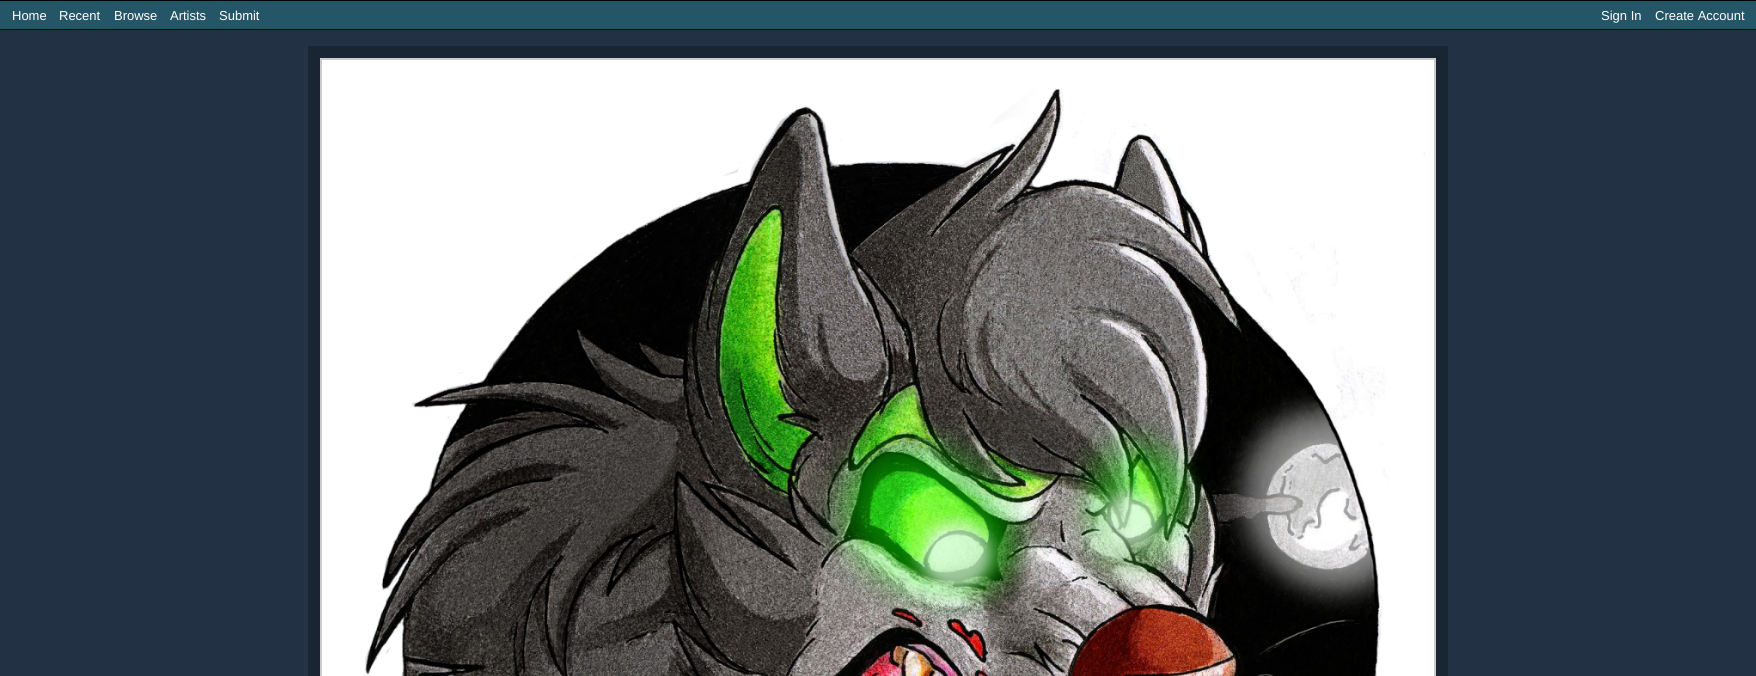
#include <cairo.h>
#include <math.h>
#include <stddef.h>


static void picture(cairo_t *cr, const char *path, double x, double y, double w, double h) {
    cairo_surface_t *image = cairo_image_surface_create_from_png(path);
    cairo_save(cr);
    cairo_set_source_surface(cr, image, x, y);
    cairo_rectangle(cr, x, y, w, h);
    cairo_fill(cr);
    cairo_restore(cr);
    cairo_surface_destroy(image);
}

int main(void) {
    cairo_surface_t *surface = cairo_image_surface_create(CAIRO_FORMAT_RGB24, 1756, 676);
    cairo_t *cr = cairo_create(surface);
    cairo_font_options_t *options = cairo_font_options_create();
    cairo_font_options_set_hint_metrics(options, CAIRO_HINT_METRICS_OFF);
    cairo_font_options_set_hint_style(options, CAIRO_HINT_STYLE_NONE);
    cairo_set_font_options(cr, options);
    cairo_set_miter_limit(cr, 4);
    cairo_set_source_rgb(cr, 0.133, 0.196, 0.267);
    cairo_paint(cr);
    cairo_set_source_rgb(cr, 0.145, 0.337, 0.408);
    cairo_rectangle(cr, 0, 1, 1756, 28);
    cairo_fill(cr);
    cairo_set_source_rgb(cr, 0, 0, 0);
    cairo_rectangle(cr, 0, 0, 1756, 1);
    cairo_fill(cr);
    cairo_rectangle(cr, 0, 29, 1756, 1);
    cairo_fill(cr);
    cairo_select_font_face(cr, "Liberation Sans", CAIRO_FONT_SLANT_NORMAL, CAIRO_FONT_WEIGHT_NORMAL);
    cairo_set_font_size(cr, 13);
    cairo_set_source_rgb(cr, 1, 1, 1);
    cairo_move_to(cr, 12, 20);
    cairo_show_text(cr, "Home");
    cairo_move_to(cr, 59, 20);
    cairo_show_text(cr, "Recent");
    cairo_move_to(cr, 114, 20);
    cairo_show_text(cr, "Browse");
    cairo_move_to(cr, 170, 20);
    cairo_show_text(cr, "Artists");
    cairo_move_to(cr, 219, 20);
    cairo_show_text(cr, "Submit");
    cairo_move_to(cr, 1601, 20);
    cairo_show_text(cr, "Sign In");
    cairo_move_to(cr, 1655, 20);
    cairo_show_text(cr, "Create Account");
    cairo_set_source_rgb(cr, 0.102, 0.145, 0.2);
    cairo_rectangle(cr, 308, 46, 1140, 630);
    cairo_fill(cr);
    cairo_set_source_rgb(cr, 1, 1, 1);
    cairo_rectangle(cr, 321, 59, 1114, 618);
    cairo_fill_preserve(cr);
    cairo_set_source_rgb(cr, 0.8, 0.8, 0.8);
    cairo_stroke(cr);
    picture(cr, "img1.png", 365, 88, 1060, 588);
    cairo_surface_write_to_png(surface, "page.png");
    cairo_font_options_destroy(options);
    cairo_destroy(cr);
    cairo_surface_destroy(surface);
    return 0;
}
